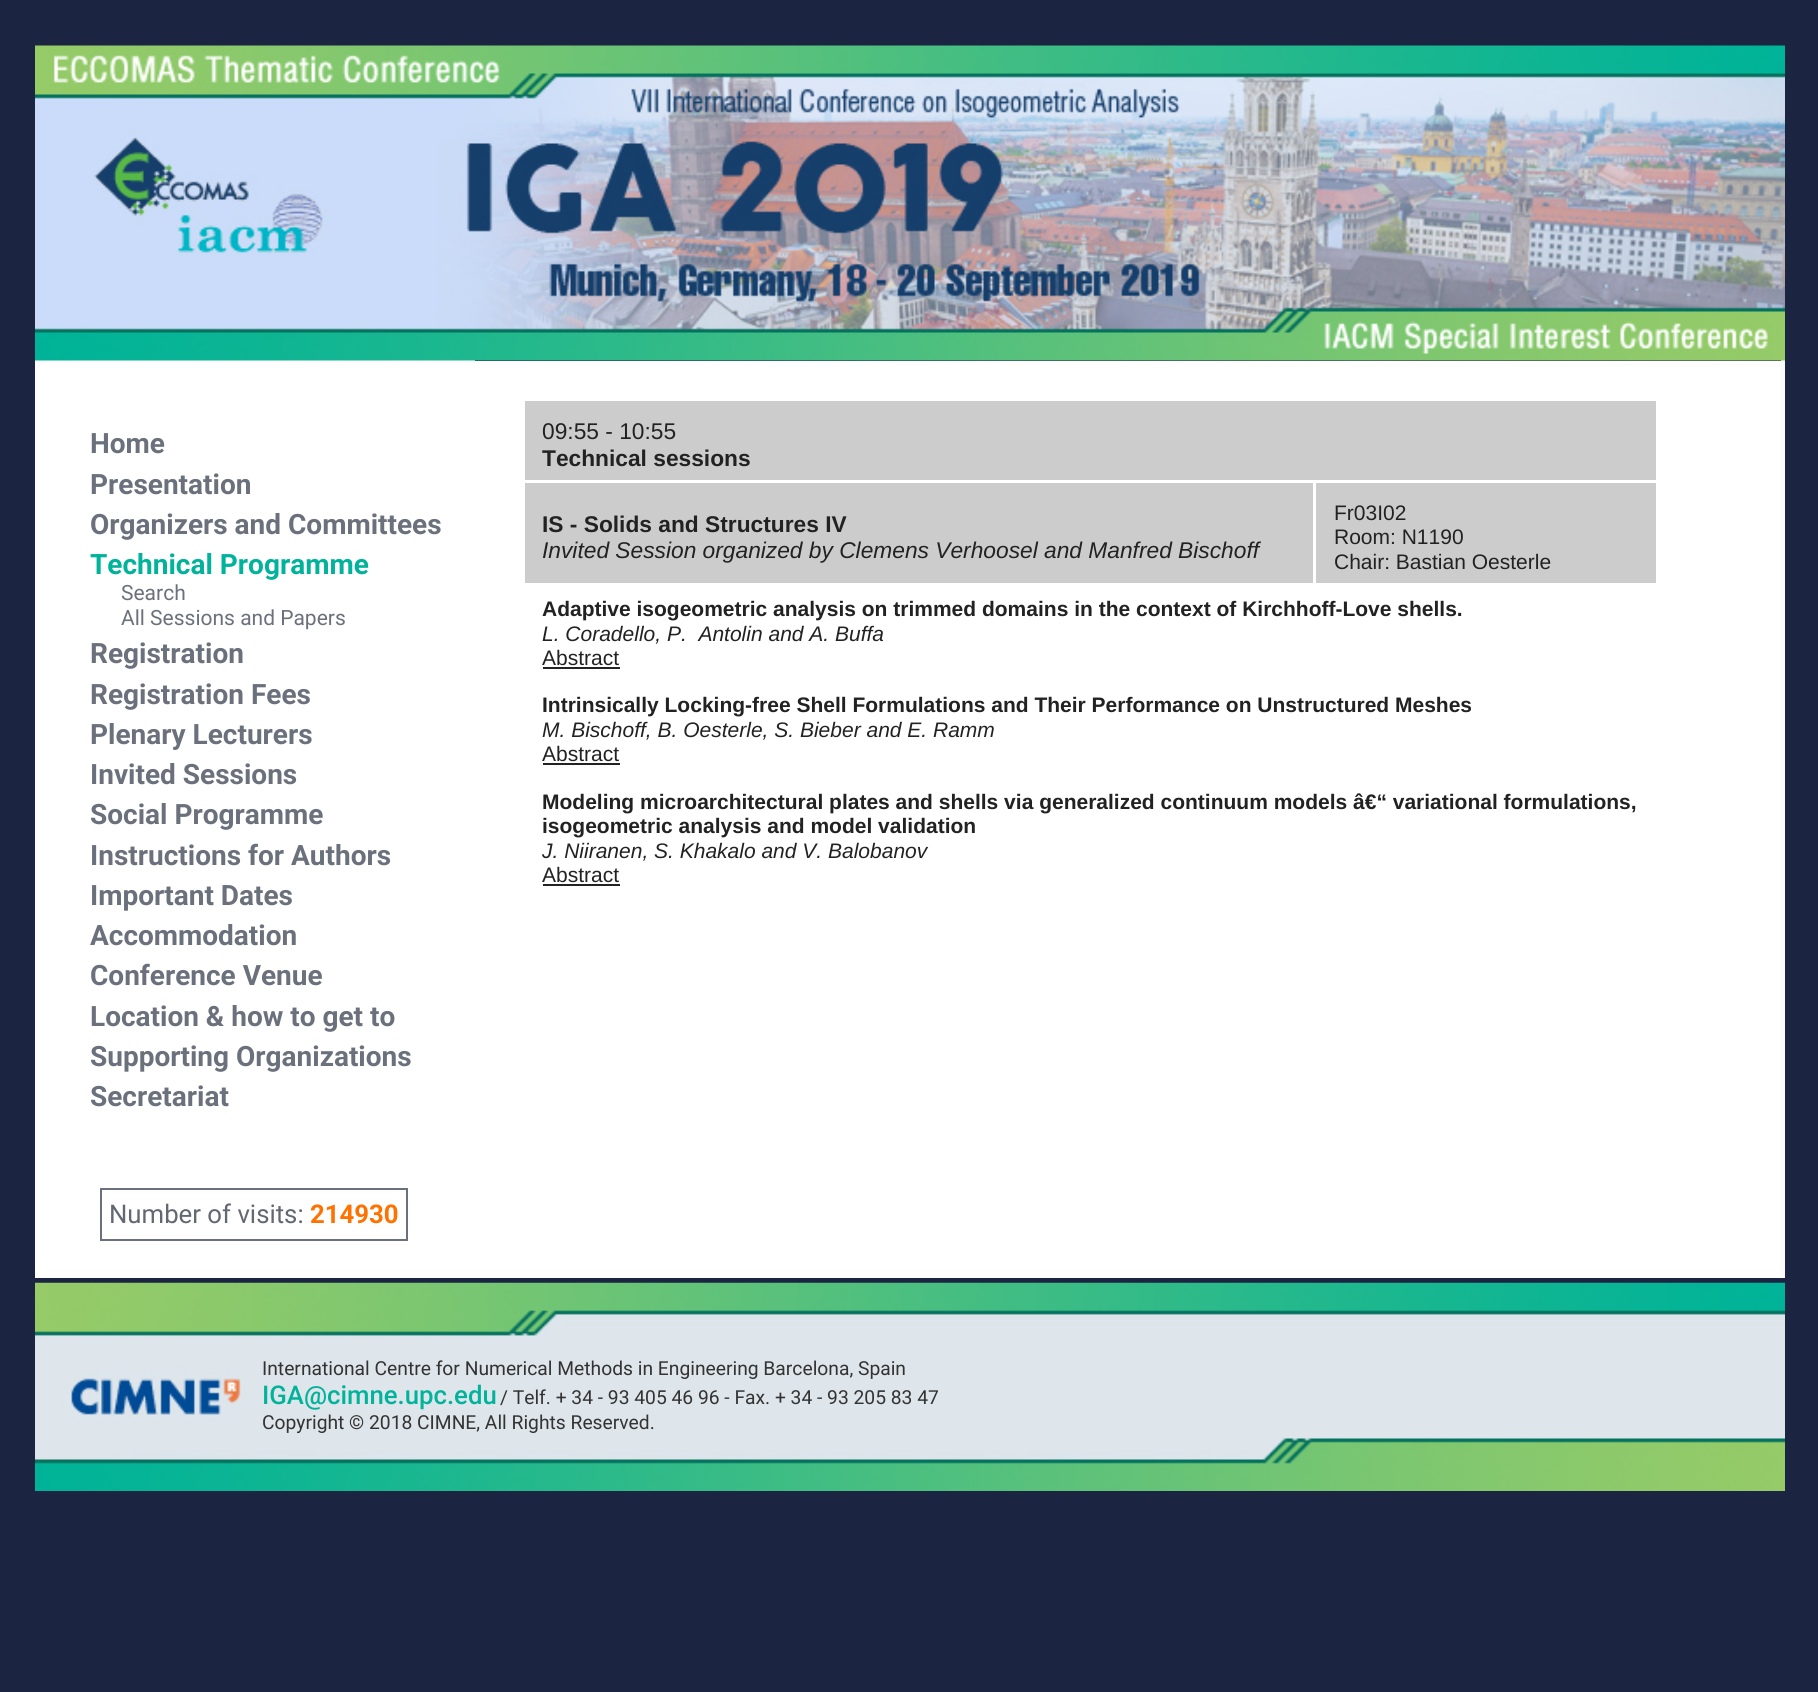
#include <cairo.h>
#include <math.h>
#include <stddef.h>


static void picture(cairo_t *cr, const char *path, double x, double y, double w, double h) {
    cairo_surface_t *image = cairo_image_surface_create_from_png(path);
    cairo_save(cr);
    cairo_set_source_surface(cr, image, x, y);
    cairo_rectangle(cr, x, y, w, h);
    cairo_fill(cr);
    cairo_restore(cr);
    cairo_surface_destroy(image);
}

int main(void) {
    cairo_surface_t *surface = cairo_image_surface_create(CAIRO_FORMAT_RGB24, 1818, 1692);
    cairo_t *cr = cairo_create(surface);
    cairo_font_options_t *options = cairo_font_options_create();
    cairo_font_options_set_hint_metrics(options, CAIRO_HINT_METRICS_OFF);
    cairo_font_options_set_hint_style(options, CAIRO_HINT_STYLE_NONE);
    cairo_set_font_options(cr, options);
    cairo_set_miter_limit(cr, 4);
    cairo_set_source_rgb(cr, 0.106, 0.141, 0.255);
    cairo_paint(cr);
    cairo_set_source_rgb(cr, 1, 1, 1);
    cairo_rectangle(cr, 35, 360, 440, 918);
    cairo_fill(cr);
    cairo_set_source_rgb(cr, 0.98, 0.984, 0.992);
    cairo_rectangle(cr, 1781, 360, 4, 918);
    cairo_fill(cr);
    picture(cr, "img1.png", 35, 45, 1750, 316);
    cairo_select_font_face(cr, "Roboto", CAIRO_FONT_SLANT_NORMAL, CAIRO_FONT_WEIGHT_BOLD);
    cairo_set_font_size(cr, 28);
    cairo_set_source_rgb(cr, 0.42, 0.443, 0.486);
    cairo_move_to(cr, 90, 453);
    cairo_show_text(cr, "Home");
    cairo_move_to(cr, 90, 494);
    cairo_show_text(cr, "Presentation");
    cairo_move_to(cr, 90, 534);
    cairo_show_text(cr, "Organizers and Committees");
    cairo_set_source_rgb(cr, 0.004, 0.702, 0.608);
    cairo_move_to(cr, 90, 574);
    cairo_show_text(cr, "Technical Programme");
    cairo_select_font_face(cr, "Roboto", CAIRO_FONT_SLANT_NORMAL, CAIRO_FONT_WEIGHT_NORMAL);
    cairo_set_font_size(cr, 21);
    cairo_set_source_rgb(cr, 0.42, 0.443, 0.486);
    cairo_move_to(cr, 121, 600);
    cairo_show_text(cr, "Search");
    cairo_move_to(cr, 121, 625);
    cairo_show_text(cr, "All Sessions and Papers");
    cairo_select_font_face(cr, "Roboto", CAIRO_FONT_SLANT_NORMAL, CAIRO_FONT_WEIGHT_BOLD);
    cairo_set_font_size(cr, 28);
    cairo_move_to(cr, 90, 663);
    cairo_show_text(cr, "Registration");
    cairo_move_to(cr, 90, 704);
    cairo_show_text(cr, "Registration Fees");
    cairo_move_to(cr, 90, 744);
    cairo_show_text(cr, "Plenary Lecturers");
    cairo_move_to(cr, 90, 784);
    cairo_show_text(cr, "Invited Sessions");
    cairo_move_to(cr, 90, 824);
    cairo_show_text(cr, "Social Programme");
    cairo_move_to(cr, 90, 865);
    cairo_show_text(cr, "Instructions for Authors");
    cairo_move_to(cr, 90, 905);
    cairo_show_text(cr, "Important Dates");
    cairo_move_to(cr, 90, 945);
    cairo_show_text(cr, "Accommodation");
    cairo_move_to(cr, 90, 985);
    cairo_show_text(cr, "Conference Venue");
    cairo_move_to(cr, 90, 1026);
    cairo_show_text(cr, "Location & how to get to");
    cairo_move_to(cr, 90, 1066);
    cairo_show_text(cr, "Supporting Organizations");
    cairo_move_to(cr, 90, 1106);
    cairo_show_text(cr, "Secretariat");
    cairo_rectangle(cr, 100, 1188, 308, 53);
    cairo_fill(cr);
    cairo_set_source_rgb(cr, 1, 1, 1);
    cairo_rectangle(cr, 102, 1190, 304, 49);
    cairo_fill(cr);
    cairo_select_font_face(cr, "Roboto", CAIRO_FONT_SLANT_NORMAL, CAIRO_FONT_WEIGHT_NORMAL);
    cairo_set_font_size(cr, 25.75);
    cairo_set_source_rgb(cr, 0.384, 0.404, 0.443);
    cairo_move_to(cr, 109, 1223);
    cairo_show_text(cr, "Number of visits:");
    cairo_select_font_face(cr, "Roboto", CAIRO_FONT_SLANT_NORMAL, CAIRO_FONT_WEIGHT_BOLD);
    cairo_set_source_rgb(cr, 1, 0.447, 0);
    cairo_move_to(cr, 310, 1223);
    cairo_show_text(cr, "214930");
    cairo_set_source_rgb(cr, 1, 1, 1);
    cairo_rectangle(cr, 475, 361, 1306, 917);
    cairo_fill(cr);
    cairo_set_source_rgb(cr, 0.8, 0.8, 0.8);
    cairo_rectangle(cr, 525, 401, 1131, 79);
    cairo_fill(cr);
    cairo_select_font_face(cr, "Liberation Sans", CAIRO_FONT_SLANT_NORMAL, CAIRO_FONT_WEIGHT_NORMAL);
    cairo_set_font_size(cr, 22.75);
    cairo_set_source_rgb(cr, 0.133, 0.133, 0.133);
    cairo_move_to(cr, 542, 439);
    cairo_show_text(cr, "09:55 - 10:55");
    cairo_select_font_face(cr, "Liberation Sans", CAIRO_FONT_SLANT_NORMAL, CAIRO_FONT_WEIGHT_BOLD);
    cairo_move_to(cr, 542, 466);
    cairo_show_text(cr, "Technical sessions");
    cairo_set_source_rgb(cr, 0.8, 0.8, 0.8);
    cairo_rectangle(cr, 525, 483, 788, 100);
    cairo_fill(cr);
    cairo_set_source_rgb(cr, 0.133, 0.133, 0.133);
    cairo_move_to(cr, 542, 532);
    cairo_show_text(cr, "IS - Solids and Structures IV");
    cairo_select_font_face(cr, "Liberation Sans", CAIRO_FONT_SLANT_ITALIC, CAIRO_FONT_WEIGHT_NORMAL);
    cairo_move_to(cr, 542, 558);
    cairo_show_text(cr, "Invited Session organized by Clemens Verhoosel and Manfred Bischoff");
    cairo_set_source_rgb(cr, 0.8, 0.8, 0.8);
    cairo_rectangle(cr, 1316, 483, 340, 100);
    cairo_fill(cr);
    cairo_select_font_face(cr, "Liberation Sans", CAIRO_FONT_SLANT_NORMAL, CAIRO_FONT_WEIGHT_NORMAL);
    cairo_set_font_size(cr, 21);
    cairo_set_source_rgb(cr, 0.133, 0.133, 0.133);
    cairo_move_to(cr, 1334, 520);
    cairo_show_text(cr, "Fr03I02");
    cairo_move_to(cr, 1334, 544);
    cairo_show_text(cr, "Room: N1190");
    cairo_move_to(cr, 1334, 569);
    cairo_show_text(cr, "Chair: Bastian Oesterle");
    cairo_select_font_face(cr, "Liberation Sans", CAIRO_FONT_SLANT_NORMAL, CAIRO_FONT_WEIGHT_BOLD);
    cairo_move_to(cr, 542, 616);
    cairo_show_text(cr, "Adaptive isogeometric analysis on trimmed domains in the context of Kirchhoff-Love shells.");
    cairo_select_font_face(cr, "Liberation Sans", CAIRO_FONT_SLANT_ITALIC, CAIRO_FONT_WEIGHT_NORMAL);
    cairo_move_to(cr, 542, 641);
    cairo_show_text(cr, "L. Coradello, P.  Antolin and A. Buffa");
    cairo_select_font_face(cr, "Liberation Sans", CAIRO_FONT_SLANT_NORMAL, CAIRO_FONT_WEIGHT_NORMAL);
    cairo_move_to(cr, 542, 665);
    cairo_show_text(cr, "Abstract");
    cairo_rectangle(cr, 543, 667, 77, 2);
    cairo_fill(cr);
    cairo_select_font_face(cr, "Liberation Sans", CAIRO_FONT_SLANT_NORMAL, CAIRO_FONT_WEIGHT_BOLD);
    cairo_move_to(cr, 542, 712);
    cairo_show_text(cr, "Intrinsically Locking-free Shell Formulations and Their Performance on Unstructured Meshes");
    cairo_select_font_face(cr, "Liberation Sans", CAIRO_FONT_SLANT_ITALIC, CAIRO_FONT_WEIGHT_NORMAL);
    cairo_move_to(cr, 542, 737);
    cairo_show_text(cr, "M. Bischoff, B. Oesterle, S. Bieber and E. Ramm");
    cairo_select_font_face(cr, "Liberation Sans", CAIRO_FONT_SLANT_NORMAL, CAIRO_FONT_WEIGHT_NORMAL);
    cairo_move_to(cr, 542, 761);
    cairo_show_text(cr, "Abstract");
    cairo_rectangle(cr, 543, 763, 77, 2);
    cairo_fill(cr);
    cairo_select_font_face(cr, "Liberation Sans", CAIRO_FONT_SLANT_NORMAL, CAIRO_FONT_WEIGHT_BOLD);
    cairo_move_to(cr, 542, 809);
    cairo_show_text(cr, "Modeling microarchitectural plates and shells via generalized continuum models â€“ variational formulations,");
    cairo_move_to(cr, 542, 833);
    cairo_show_text(cr, "isogeometric analysis and model validation");
    cairo_select_font_face(cr, "Liberation Sans", CAIRO_FONT_SLANT_ITALIC, CAIRO_FONT_WEIGHT_NORMAL);
    cairo_move_to(cr, 542, 858);
    cairo_show_text(cr, "J. Niiranen, S. Khakalo and V. Balobanov");
    cairo_select_font_face(cr, "Liberation Sans", CAIRO_FONT_SLANT_NORMAL, CAIRO_FONT_WEIGHT_NORMAL);
    cairo_move_to(cr, 542, 882);
    cairo_show_text(cr, "Abstract");
    cairo_rectangle(cr, 543, 884, 77, 2);
    cairo_fill(cr);
    picture(cr, "img2.png", 35, 1282, 1750, 209);
    cairo_select_font_face(cr, "Roboto", CAIRO_FONT_SLANT_NORMAL, CAIRO_FONT_WEIGHT_NORMAL);
    cairo_set_font_size(cr, 19.25);
    cairo_set_source_rgb(cr, 0.2, 0.2, 0.2);
    cairo_move_to(cr, 262, 1375);
    cairo_show_text(cr, "International Centre for Numerical Methods in Engineering Barcelona, Spain");
    cairo_select_font_face(cr, "Roboto Medium", CAIRO_FONT_SLANT_NORMAL, CAIRO_FONT_WEIGHT_NORMAL);
    cairo_set_font_size(cr, 25.75);
    cairo_set_source_rgb(cr, 0.004, 0.702, 0.608);
    cairo_move_to(cr, 262, 1404);
    cairo_show_text(cr, "IGA@cimne.upc.edu");
    cairo_select_font_face(cr, "Roboto", CAIRO_FONT_SLANT_NORMAL, CAIRO_FONT_WEIGHT_NORMAL);
    cairo_set_font_size(cr, 19.25);
    cairo_set_source_rgb(cr, 0.2, 0.2, 0.2);
    cairo_move_to(cr, 500, 1404);
    cairo_show_text(cr, "/ Telf. + 34 - 93 405 46 96 - Fax. + 34 - 93 205 83 47");
    cairo_move_to(cr, 262, 1429);
    cairo_show_text(cr, "Copyright © 2018 CIMNE, All Rights Reserved.");
    cairo_surface_write_to_png(surface, "page.png");
    cairo_font_options_destroy(options);
    cairo_destroy(cr);
    cairo_surface_destroy(surface);
    return 0;
}
